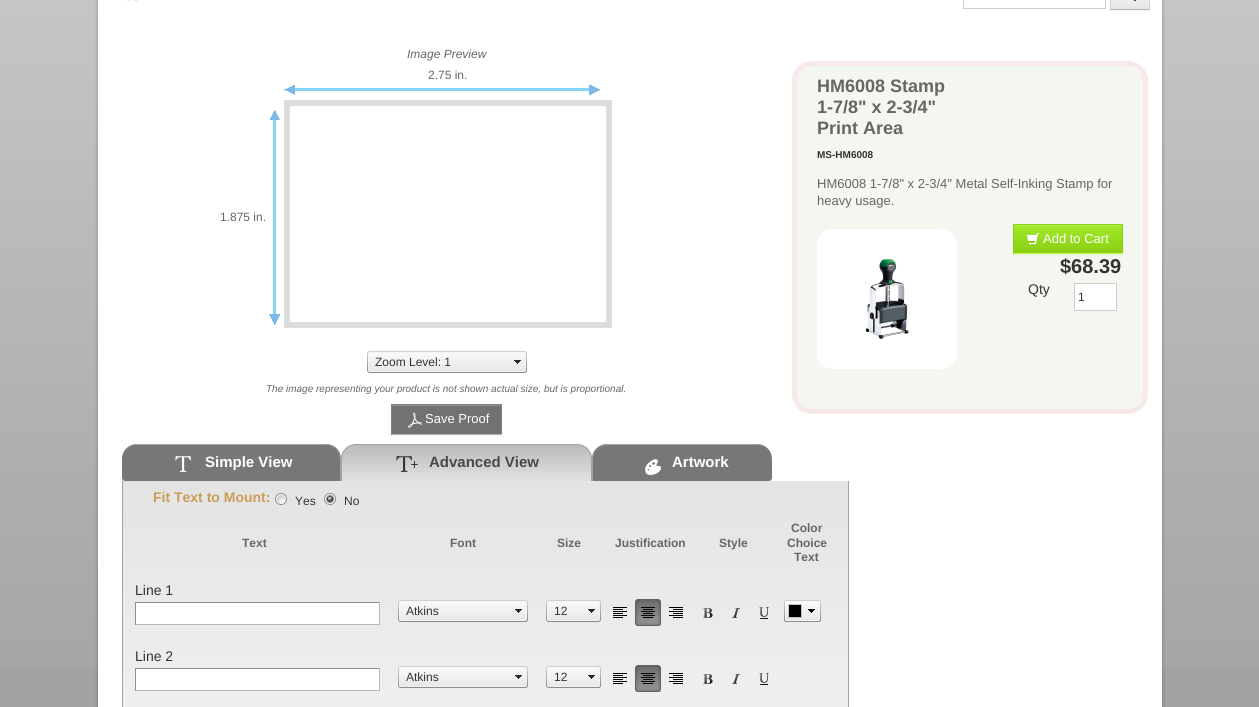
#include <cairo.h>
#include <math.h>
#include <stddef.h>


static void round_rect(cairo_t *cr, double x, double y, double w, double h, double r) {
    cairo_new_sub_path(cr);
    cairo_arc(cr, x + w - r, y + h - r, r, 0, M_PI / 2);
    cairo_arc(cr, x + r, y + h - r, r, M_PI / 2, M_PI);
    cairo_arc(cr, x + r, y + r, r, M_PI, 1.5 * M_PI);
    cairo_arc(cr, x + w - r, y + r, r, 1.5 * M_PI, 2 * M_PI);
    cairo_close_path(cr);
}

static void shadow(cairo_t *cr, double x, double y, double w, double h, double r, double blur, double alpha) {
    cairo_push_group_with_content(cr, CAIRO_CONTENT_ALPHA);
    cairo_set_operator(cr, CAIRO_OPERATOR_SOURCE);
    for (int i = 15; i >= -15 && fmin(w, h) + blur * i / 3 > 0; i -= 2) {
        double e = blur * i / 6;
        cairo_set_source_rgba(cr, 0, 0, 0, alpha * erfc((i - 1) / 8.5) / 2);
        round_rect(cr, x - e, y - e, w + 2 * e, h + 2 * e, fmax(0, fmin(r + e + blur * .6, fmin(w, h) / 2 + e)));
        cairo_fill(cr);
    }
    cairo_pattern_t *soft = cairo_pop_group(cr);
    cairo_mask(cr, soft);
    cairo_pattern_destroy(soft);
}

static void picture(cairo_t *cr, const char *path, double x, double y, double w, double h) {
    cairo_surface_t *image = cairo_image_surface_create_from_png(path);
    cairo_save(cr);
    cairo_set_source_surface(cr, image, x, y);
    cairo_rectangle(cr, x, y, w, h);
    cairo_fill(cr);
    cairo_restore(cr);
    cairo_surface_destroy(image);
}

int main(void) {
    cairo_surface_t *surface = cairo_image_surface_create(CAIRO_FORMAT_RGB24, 1259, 707);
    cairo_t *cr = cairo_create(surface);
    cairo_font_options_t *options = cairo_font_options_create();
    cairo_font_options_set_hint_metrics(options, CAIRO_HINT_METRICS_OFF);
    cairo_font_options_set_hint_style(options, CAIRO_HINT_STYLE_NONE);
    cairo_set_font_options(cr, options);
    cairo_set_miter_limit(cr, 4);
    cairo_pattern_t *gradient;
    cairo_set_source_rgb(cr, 0.635, 0.635, 0.635);
    cairo_paint(cr);
    picture(cr, "img1.png", 0, 0, 1259, 668);
    cairo_set_source_rgb(cr, 1, 1, 1);
    cairo_rectangle(cr, 98, 0, 1064, 707);
    cairo_fill(cr);
    cairo_save(cr);
    cairo_set_fill_rule(cr, CAIRO_FILL_RULE_EVEN_ODD);
    cairo_new_path(cr);
    cairo_move_to(cr, 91, 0);
    cairo_line_to(cr, 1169, 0);
    cairo_line_to(cr, 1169, 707);
    cairo_line_to(cr, 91, 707);
    cairo_close_path(cr);
    cairo_move_to(cr, 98, -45);
    cairo_line_to(cr, 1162, -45);
    cairo_line_to(cr, 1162, 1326);
    cairo_line_to(cr, 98, 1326);
    cairo_close_path(cr);
    cairo_clip(cr);
    cairo_set_source_rgb(cr, 0, 0, 0);
    shadow(cr, 98, -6, 1064, 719, 0, 2, 0.3);
    cairo_restore(cr);
    picture(cr, "img2.png", 126, 0, 12, 1);
    cairo_rectangle(cr, 963.5, -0.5, 142, 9);
    cairo_set_source_rgb(cr, 0.8, 0.8, 0.8);
    cairo_set_line_width(cr, 1);
    cairo_stroke(cr);
    cairo_set_source_rgb(cr, 0, 0, 0);
    shadow(cr, 1110, -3, 40, 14, 0, 1, 0.05);
    gradient = cairo_pattern_create_linear(1130, -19, 1130, 9);
    cairo_pattern_add_color_stop_rgba(gradient, 0, 1, 1, 1, 1);
    cairo_pattern_add_color_stop_rgba(gradient, 1, 0.902, 0.902, 0.902, 1);
    cairo_set_source(cr, gradient);
    cairo_pattern_destroy(gradient);
    cairo_rectangle(cr, 1110, 0, 40, 9);
    cairo_fill(cr);
    cairo_set_source_rgba(cr, 0, 0, 0, 0.1);
    cairo_new_path(cr);
    cairo_move_to(cr, 1150, -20);
    cairo_line_to(cr, 1150, 10);
    cairo_line_to(cr, 1149, 9);
    cairo_line_to(cr, 1149, -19);
    cairo_close_path(cr);
    cairo_fill(cr);
    cairo_set_source_rgb(cr, 0.702, 0.702, 0.702);
    cairo_new_path(cr);
    cairo_move_to(cr, 1150, 10);
    cairo_line_to(cr, 1110, 10);
    cairo_line_to(cr, 1111, 9);
    cairo_line_to(cr, 1149, 9);
    cairo_close_path(cr);
    cairo_fill(cr);
    cairo_set_source_rgba(cr, 0, 0, 0, 0.1);
    cairo_new_path(cr);
    cairo_move_to(cr, 1110, 10);
    cairo_line_to(cr, 1110, -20);
    cairo_line_to(cr, 1111, -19);
    cairo_line_to(cr, 1111, 9);
    cairo_close_path(cr);
    cairo_fill(cr);
    picture(cr, "img3.png", 1133, 0, 4, 2);
    cairo_select_font_face(cr, "Liberation Sans", CAIRO_FONT_SLANT_ITALIC, CAIRO_FONT_WEIGHT_NORMAL);
    cairo_set_font_size(cr, 12);
    cairo_set_source_rgb(cr, 0.4, 0.4, 0.4);
    cairo_move_to(cr, 407, 58);
    cairo_show_text(cr, "Image Preview");
    cairo_select_font_face(cr, "Liberation Sans", CAIRO_FONT_SLANT_NORMAL, CAIRO_FONT_WEIGHT_NORMAL);
    cairo_move_to(cr, 428, 79);
    cairo_show_text(cr, "2.75 in.");
    picture(cr, "img4.png", 284, 85, 316, 10);
    cairo_move_to(cr, 220, 221);
    cairo_show_text(cr, "1.875 in.");
    picture(cr, "img5.png", 269, 110, 11, 215);
    cairo_set_source_rgb(cr, 0.863, 0.863, 0.863);
    cairo_rectangle(cr, 284, 100, 328, 228);
    cairo_fill(cr);
    cairo_set_source_rgb(cr, 1, 1, 1);
    cairo_rectangle(cr, 290, 106, 316, 216);
    cairo_fill(cr);
    picture(cr, "img6.png", 367, 351, 142, 22);
    cairo_set_source_rgb(cr, 0.2, 0.2, 0.2);
    cairo_move_to(cr, 375, 366);
    cairo_show_text(cr, "Zoom Level: 1");
    picture(cr, "img7.png", 509, 351, 18, 22);
    cairo_select_font_face(cr, "Liberation Sans", CAIRO_FONT_SLANT_ITALIC, CAIRO_FONT_WEIGHT_NORMAL);
    cairo_set_font_size(cr, 10);
    cairo_set_source_rgb(cr, 0.4, 0.4, 0.4);
    cairo_move_to(cr, 266, 392);
    cairo_show_text(cr, "The image representing your product is not shown actual size, but is proportional.");
    cairo_set_source_rgb(cr, 0, 0, 0);
    shadow(cr, 391, 405, 111, 31, 0, 1, 0.05);
    cairo_set_source_rgb(cr, 0.447, 0.447, 0.447);
    cairo_rectangle(cr, 392, 406, 109, 28);
    cairo_fill(cr);
    cairo_set_source_rgb(cr, 0.557, 0.557, 0.557);
    cairo_rectangle(cr, 392, 405, 109, 1);
    cairo_fill(cr);
    cairo_set_source_rgb(cr, 0.506, 0.506, 0.506);
    cairo_rectangle(cr, 391, 404, 111, 1);
    cairo_fill(cr);
    cairo_rectangle(cr, 501, 404, 1, 31);
    cairo_fill(cr);
    cairo_set_source_rgb(cr, 0.706, 0.706, 0.706);
    cairo_rectangle(cr, 391, 434, 111, 1);
    cairo_fill(cr);
    cairo_set_source_rgb(cr, 0.506, 0.506, 0.506);
    cairo_rectangle(cr, 391, 404, 1, 31);
    cairo_fill(cr);
    picture(cr, "img8.png", 408, 412, 14, 16);
    cairo_select_font_face(cr, "Liberation Sans", CAIRO_FONT_SLANT_NORMAL, CAIRO_FONT_WEIGHT_NORMAL);
    cairo_set_font_size(cr, 13);
    cairo_set_source_rgb(cr, 1, 1, 1);
    cairo_move_to(cr, 425, 423);
    cairo_show_text(cr, "Save Proof");
    cairo_save(cr);
    round_rect(cr, 122, 444, 650, 37, 3);
    cairo_clip(cr);
    cairo_set_source_rgb(cr, 0.467, 0.467, 0.467);
    cairo_new_path(cr);
    cairo_move_to(cr, 137, 444);
    cairo_line_to(cr, 326, 444);
    cairo_curve_to(cr, 334.5, 444, 341, 450.5, 341, 459);
    cairo_line_to(cr, 341, 481);
    cairo_line_to(cr, 125, 481);
    cairo_curve_to(cr, 123.5, 481, 122, 479.5, 122, 478);
    cairo_line_to(cr, 122, 459);
    cairo_curve_to(cr, 122, 450.5, 128.5, 444, 137, 444);
    cairo_close_path(cr);
    cairo_fill(cr);
    cairo_restore(cr);
    cairo_set_source_rgb(cr, 0.635, 0.635, 0.635);
    cairo_set_fill_rule(cr, CAIRO_FILL_RULE_EVEN_ODD);
    cairo_new_path(cr);
    cairo_move_to(cr, 137, 444);
    cairo_line_to(cr, 326, 444);
    cairo_curve_to(cr, 334, 444, 341, 451, 341, 459);
    cairo_line_to(cr, 341, 481);
    cairo_line_to(cr, 122, 481);
    cairo_line_to(cr, 122, 459);
    cairo_curve_to(cr, 122, 451, 129, 444, 137, 444);
    cairo_close_path(cr);
    cairo_move_to(cr, 137, 445);
    cairo_line_to(cr, 326, 445);
    cairo_curve_to(cr, 334, 445, 340, 451, 340, 459);
    cairo_line_to(cr, 340, 481);
    cairo_line_to(cr, 122, 481);
    cairo_line_to(cr, 122, 459);
    cairo_curve_to(cr, 122, 451, 129, 445, 137, 445);
    cairo_close_path(cr);
    cairo_fill(cr);
    picture(cr, "img9.png", 175, 456, 16, 16);
    cairo_select_font_face(cr, "Liberation Sans", CAIRO_FONT_SLANT_NORMAL, CAIRO_FONT_WEIGHT_BOLD);
    cairo_set_font_size(cr, 15);
    cairo_set_source_rgb(cr, 1, 1, 1);
    cairo_move_to(cr, 205, 467);
    cairo_show_text(cr, "Simple View");
    cairo_save(cr);
    cairo_set_fill_rule(cr, CAIRO_FILL_RULE_WINDING);
    cairo_new_path(cr);
    cairo_move_to(cr, 356, 444);
    cairo_line_to(cr, 577, 444);
    cairo_curve_to(cr, 585.5, 444, 592, 450.5, 592, 459);
    cairo_line_to(cr, 592, 481);
    cairo_line_to(cr, 341, 481);
    cairo_line_to(cr, 341, 459);
    cairo_curve_to(cr, 341, 450.5, 347.5, 444, 356, 444);
    cairo_close_path(cr);
    cairo_clip(cr);
    gradient = cairo_pattern_create_linear(467, 445, 467, 481);
    cairo_pattern_add_color_stop_rgba(gradient, 0, 0.729, 0.729, 0.729, 1);
    cairo_pattern_add_color_stop_rgba(gradient, 1, 0.886, 0.886, 0.886, 1);
    cairo_set_source(cr, gradient);
    cairo_pattern_destroy(gradient);
    cairo_rectangle(cr, 341, 445, 251, 36);
    cairo_fill(cr);
    cairo_restore(cr);
    cairo_set_source_rgb(cr, 0.635, 0.635, 0.635);
    cairo_new_path(cr);
    cairo_move_to(cr, 356, 444);
    cairo_line_to(cr, 577, 444);
    cairo_curve_to(cr, 585, 444, 592, 451, 592, 459);
    cairo_line_to(cr, 592, 481);
    cairo_line_to(cr, 341, 481);
    cairo_line_to(cr, 341, 459);
    cairo_curve_to(cr, 341, 451, 348, 444, 356, 444);
    cairo_close_path(cr);
    cairo_move_to(cr, 356, 445);
    cairo_line_to(cr, 577, 445);
    cairo_curve_to(cr, 585, 445, 591, 451, 591, 459);
    cairo_line_to(cr, 591, 481);
    cairo_line_to(cr, 342, 481);
    cairo_line_to(cr, 342, 459);
    cairo_curve_to(cr, 342, 451, 348, 445, 356, 445);
    cairo_close_path(cr);
    cairo_fill(cr);
    picture(cr, "img10.png", 396, 456, 22, 16);
    cairo_set_source_rgb(cr, 0.282, 0.282, 0.282);
    cairo_move_to(cr, 429, 467);
    cairo_show_text(cr, "Advanced View");
    cairo_save(cr);
    cairo_set_fill_rule(cr, CAIRO_FILL_RULE_WINDING);
    round_rect(cr, 122, 444, 650, 37, 3);
    cairo_clip(cr);
    cairo_set_source_rgb(cr, 0.467, 0.467, 0.467);
    cairo_new_path(cr);
    cairo_move_to(cr, 607, 444);
    cairo_line_to(cr, 757, 444);
    cairo_curve_to(cr, 765.5, 444, 772, 450.5, 772, 459);
    cairo_line_to(cr, 772, 478);
    cairo_curve_to(cr, 772, 479.5, 770.5, 481, 769, 481);
    cairo_line_to(cr, 592, 481);
    cairo_line_to(cr, 592, 459);
    cairo_curve_to(cr, 592, 450.5, 598.5, 444, 607, 444);
    cairo_close_path(cr);
    cairo_fill(cr);
    cairo_restore(cr);
    cairo_set_source_rgb(cr, 0.635, 0.635, 0.635);
    cairo_new_path(cr);
    cairo_move_to(cr, 607, 444);
    cairo_line_to(cr, 757, 444);
    cairo_curve_to(cr, 765, 444, 772, 451, 772, 459);
    cairo_line_to(cr, 772, 481);
    cairo_line_to(cr, 592, 481);
    cairo_line_to(cr, 592, 459);
    cairo_curve_to(cr, 592, 451, 599, 444, 607, 444);
    cairo_close_path(cr);
    cairo_move_to(cr, 607, 445);
    cairo_line_to(cr, 757, 445);
    cairo_curve_to(cr, 765, 445, 772, 451, 772, 459);
    cairo_line_to(cr, 772, 481);
    cairo_line_to(cr, 593, 481);
    cairo_line_to(cr, 593, 459);
    cairo_curve_to(cr, 593, 451, 599, 445, 607, 445);
    cairo_close_path(cr);
    cairo_fill(cr);
    picture(cr, "img11.png", 645, 459, 16, 16);
    cairo_set_source_rgb(cr, 1, 1, 1);
    cairo_move_to(cr, 672, 467);
    cairo_show_text(cr, "Artwork");
    gradient = cairo_pattern_create_linear(485, 481, 486, 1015);
    cairo_pattern_add_color_stop_rgba(gradient, 0, 0.894, 0.894, 0.894, 1);
    cairo_pattern_add_color_stop_rgba(gradient, 1, 1, 1, 1, 1);
    cairo_set_source(cr, gradient);
    cairo_pattern_destroy(gradient);
    cairo_rectangle(cr, 123, 481, 725, 226);
    cairo_fill(cr);
    cairo_set_source_rgb(cr, 0.635, 0.635, 0.635);
    cairo_rectangle(cr, 848, 481, 1, 226);
    cairo_fill(cr);
    cairo_rectangle(cr, 122, 481, 1, 226);
    cairo_fill(cr);
    cairo_set_font_size(cr, 14);
    cairo_set_source_rgb(cr, 0.792, 0.62, 0.349);
    cairo_move_to(cr, 153, 502);
    cairo_show_text(cr, "Fit Text to Mount:");
    picture(cr, "img12.png", 275, 493, 12, 12);
    cairo_select_font_face(cr, "Liberation Sans", CAIRO_FONT_SLANT_NORMAL, CAIRO_FONT_WEIGHT_NORMAL);
    cairo_set_font_size(cr, 12);
    cairo_set_source_rgb(cr, 0.2, 0.2, 0.2);
    cairo_move_to(cr, 295, 505);
    cairo_show_text(cr, "Yes");
    picture(cr, "img13.png", 324, 493, 12, 12);
    cairo_move_to(cr, 344, 505);
    cairo_show_text(cr, "No");
    cairo_select_font_face(cr, "Liberation Sans", CAIRO_FONT_SLANT_NORMAL, CAIRO_FONT_WEIGHT_BOLD);
    cairo_set_source_rgb(cr, 0.4, 0.4, 0.4);
    cairo_move_to(cr, 242, 547);
    cairo_show_text(cr, "Text");
    cairo_move_to(cr, 450, 547);
    cairo_show_text(cr, "Font");
    cairo_move_to(cr, 557, 547);
    cairo_show_text(cr, "Size");
    cairo_move_to(cr, 615, 547);
    cairo_show_text(cr, "Justification");
    cairo_move_to(cr, 719, 547);
    cairo_show_text(cr, "Style");
    cairo_move_to(cr, 791, 532);
    cairo_show_text(cr, "Color");
    cairo_move_to(cr, 787, 547);
    cairo_show_text(cr, "Choice");
    cairo_move_to(cr, 794, 561);
    cairo_show_text(cr, "Text");
    cairo_select_font_face(cr, "Liberation Sans", CAIRO_FONT_SLANT_NORMAL, CAIRO_FONT_WEIGHT_NORMAL);
    cairo_set_font_size(cr, 14);
    cairo_set_source_rgb(cr, 0.2, 0.2, 0.2);
    cairo_move_to(cr, 135, 595);
    cairo_show_text(cr, "Line 1");
    cairo_set_source_rgb(cr, 1, 1, 1);
    cairo_rectangle(cr, 136, 603, 243, 21);
    cairo_fill(cr);
    cairo_set_source_rgb(cr, 0.561, 0.561, 0.561);
    cairo_rectangle(cr, 135, 602, 245, 1);
    cairo_fill(cr);
    cairo_set_source_rgb(cr, 0.722, 0.722, 0.722);
    cairo_rectangle(cr, 379, 602, 1, 23);
    cairo_fill(cr);
    cairo_rectangle(cr, 135, 624, 245, 1);
    cairo_fill(cr);
    cairo_set_source_rgb(cr, 0.561, 0.561, 0.561);
    cairo_rectangle(cr, 135, 602, 1, 23);
    cairo_fill(cr);
    picture(cr, "img14.png", 398, 600, 112, 22);
    cairo_set_font_size(cr, 12);
    cairo_set_source_rgb(cr, 0.2, 0.2, 0.2);
    cairo_move_to(cr, 406, 615);
    cairo_show_text(cr, "Atkins");
    picture(cr, "img15.png", 510, 600, 18, 22);
    picture(cr, "img16.png", 546, 600, 37, 22);
    cairo_move_to(cr, 554, 615);
    cairo_show_text(cr, "12");
    picture(cr, "img15.png", 583, 600, 18, 22);
    picture(cr, "img17.png", 613, 607, 14, 11);
    picture(cr, "img18.png", 635, 623, 21, 3);
    picture(cr, "img19.png", 658, 599, 3, 24);
    picture(cr, "img20.png", 656, 623, 5, 3);
    picture(cr, "img21.png", 635, 599, 23, 24);
    picture(cr, "img22.png", 641, 607, 14, 11);
    picture(cr, "img23.png", 669, 607, 14, 11);
    picture(cr, "img24.png", 703, 608, 10, 10);
    picture(cr, "img25.png", 732, 608, 8, 10);
    picture(cr, "img26.png", 759, 607, 10, 12);
    cairo_set_source_rgb(cr, 0, 0, 0);
    cairo_rectangle(cr, 789, 605, 12, 12);
    cairo_fill(cr);
    picture(cr, "img27.png", 784, 600, 37, 22);
    cairo_set_font_size(cr, 14);
    cairo_set_source_rgb(cr, 0.2, 0.2, 0.2);
    cairo_move_to(cr, 135, 661);
    cairo_show_text(cr, "Line 2");
    cairo_set_source_rgb(cr, 1, 1, 1);
    cairo_rectangle(cr, 136, 669, 243, 21);
    cairo_fill(cr);
    cairo_set_source_rgb(cr, 0.561, 0.561, 0.561);
    cairo_rectangle(cr, 135, 668, 245, 1);
    cairo_fill(cr);
    cairo_set_source_rgb(cr, 0.722, 0.722, 0.722);
    cairo_rectangle(cr, 379, 668, 1, 23);
    cairo_fill(cr);
    cairo_rectangle(cr, 135, 690, 245, 1);
    cairo_fill(cr);
    cairo_set_source_rgb(cr, 0.561, 0.561, 0.561);
    cairo_rectangle(cr, 135, 668, 1, 23);
    cairo_fill(cr);
    picture(cr, "img28.png", 398, 666, 112, 22);
    cairo_set_font_size(cr, 12);
    cairo_set_source_rgb(cr, 0.2, 0.2, 0.2);
    cairo_move_to(cr, 406, 681);
    cairo_show_text(cr, "Atkins");
    picture(cr, "img29.png", 510, 666, 18, 22);
    picture(cr, "img30.png", 546, 666, 37, 22);
    cairo_move_to(cr, 554, 681);
    cairo_show_text(cr, "12");
    picture(cr, "img29.png", 583, 666, 18, 22);
    picture(cr, "img31.png", 613, 673, 14, 11);
    picture(cr, "img32.png", 635, 689, 21, 3);
    picture(cr, "img33.png", 658, 665, 3, 24);
    picture(cr, "img20.png", 656, 689, 5, 3);
    picture(cr, "img34.png", 635, 665, 23, 24);
    picture(cr, "img22.png", 641, 673, 14, 11);
    picture(cr, "img35.png", 669, 673, 14, 11);
    picture(cr, "img36.png", 703, 674, 10, 10);
    picture(cr, "img37.png", 732, 674, 8, 10);
    picture(cr, "img38.png", 759, 673, 10, 12);
    cairo_set_source_rgb(cr, 0.953, 0.965, 0.937);
    round_rect(cr, 794.5, 63.5, 351, 348, 17.5);
    cairo_fill_preserve(cr);
    cairo_set_source_rgb(cr, 0.965, 0.914, 0.914);
    cairo_set_line_width(cr, 5);
    cairo_stroke(cr);
    cairo_select_font_face(cr, "Liberation Sans", CAIRO_FONT_SLANT_NORMAL, CAIRO_FONT_WEIGHT_BOLD);
    cairo_set_font_size(cr, 18);
    cairo_set_source_rgb(cr, 0.4, 0.4, 0.4);
    cairo_move_to(cr, 817, 92);
    cairo_show_text(cr, "HM6008 Stamp");
    cairo_move_to(cr, 817, 113);
    cairo_show_text(cr, "1-7/8\" x 2-3/4\"");
    cairo_move_to(cr, 817, 134);
    cairo_show_text(cr, "Print Area");
    cairo_set_font_size(cr, 10);
    cairo_set_source_rgb(cr, 0.2, 0.2, 0.2);
    cairo_move_to(cr, 817, 158);
    cairo_show_text(cr, "MS-HM6008");
    cairo_select_font_face(cr, "Liberation Sans", CAIRO_FONT_SLANT_NORMAL, CAIRO_FONT_WEIGHT_NORMAL);
    cairo_set_font_size(cr, 13);
    cairo_set_source_rgb(cr, 0.4, 0.4, 0.4);
    cairo_move_to(cr, 817, 188);
    cairo_show_text(cr, "HM6008 1-7/8\" x 2-3/4\" Metal Self-Inking Stamp for");
    cairo_move_to(cr, 817, 205);
    cairo_show_text(cr, "heavy usage.");
    cairo_set_source_rgb(cr, 1, 1, 1);
    round_rect(cr, 817, 229, 140, 140, 15);
    cairo_fill(cr);
    picture(cr, "img39.png", 865, 259, 44, 80);
    cairo_set_source_rgb(cr, 0, 0, 0);
    shadow(cr, 1013, 225, 110, 30, 0, 1, 0.05);
    gradient = cairo_pattern_create_linear(1068, 225, 1068, 253);
    cairo_pattern_add_color_stop_rgba(gradient, 0, 0.639, 0.91, 0.169, 1);
    cairo_pattern_add_color_stop_rgba(gradient, 1, 0.541, 0.812, 0.071, 1);
    cairo_set_source(cr, gradient);
    cairo_pattern_destroy(gradient);
    cairo_rectangle(cr, 1014, 226, 108, 27);
    cairo_fill(cr);
    cairo_set_source_rgb(cr, 0.71, 0.929, 0.333);
    cairo_rectangle(cr, 1014, 225, 108, 1);
    cairo_fill(cr);
    cairo_set_source_rgb(cr, 0.541, 0.812, 0.071);
    cairo_rectangle(cr, 1013, 224, 110, 1);
    cairo_fill(cr);
    cairo_rectangle(cr, 1122, 224, 1, 30);
    cairo_fill(cr);
    cairo_set_source_rgb(cr, 0.741, 1, 0.271);
    cairo_rectangle(cr, 1013, 253, 110, 1);
    cairo_fill(cr);
    cairo_set_source_rgb(cr, 0.541, 0.812, 0.071);
    cairo_rectangle(cr, 1013, 224, 1, 30);
    cairo_fill(cr);
    picture(cr, "img40.png", 1027, 233, 12, 13);
    cairo_set_source_rgb(cr, 1, 1, 1);
    cairo_move_to(cr, 1043, 243);
    cairo_show_text(cr, "Add to Cart");
    cairo_select_font_face(cr, "Liberation Sans", CAIRO_FONT_SLANT_NORMAL, CAIRO_FONT_WEIGHT_BOLD);
    cairo_set_font_size(cr, 20);
    cairo_set_source_rgb(cr, 0.2, 0.2, 0.2);
    cairo_move_to(cr, 1060, 273);
    cairo_show_text(cr, "$68.39");
    cairo_select_font_face(cr, "Liberation Sans", CAIRO_FONT_SLANT_NORMAL, CAIRO_FONT_WEIGHT_NORMAL);
    cairo_set_font_size(cr, 14);
    cairo_move_to(cr, 1028, 294);
    cairo_show_text(cr, "Qty");
    cairo_set_source_rgb(cr, 1, 1, 1);
    cairo_rectangle(cr, 1074.5, 283.5, 42, 27);
    cairo_fill_preserve(cr);
    cairo_set_source_rgb(cr, 0.8, 0.8, 0.8);
    cairo_set_line_width(cr, 1);
    cairo_stroke(cr);
    cairo_set_font_size(cr, 12);
    cairo_set_source_rgb(cr, 0.2, 0.2, 0.2);
    cairo_move_to(cr, 1078, 301);
    cairo_show_text(cr, "1");
    cairo_surface_write_to_png(surface, "page.png");
    cairo_font_options_destroy(options);
    cairo_destroy(cr);
    cairo_surface_destroy(surface);
    return 0;
}
